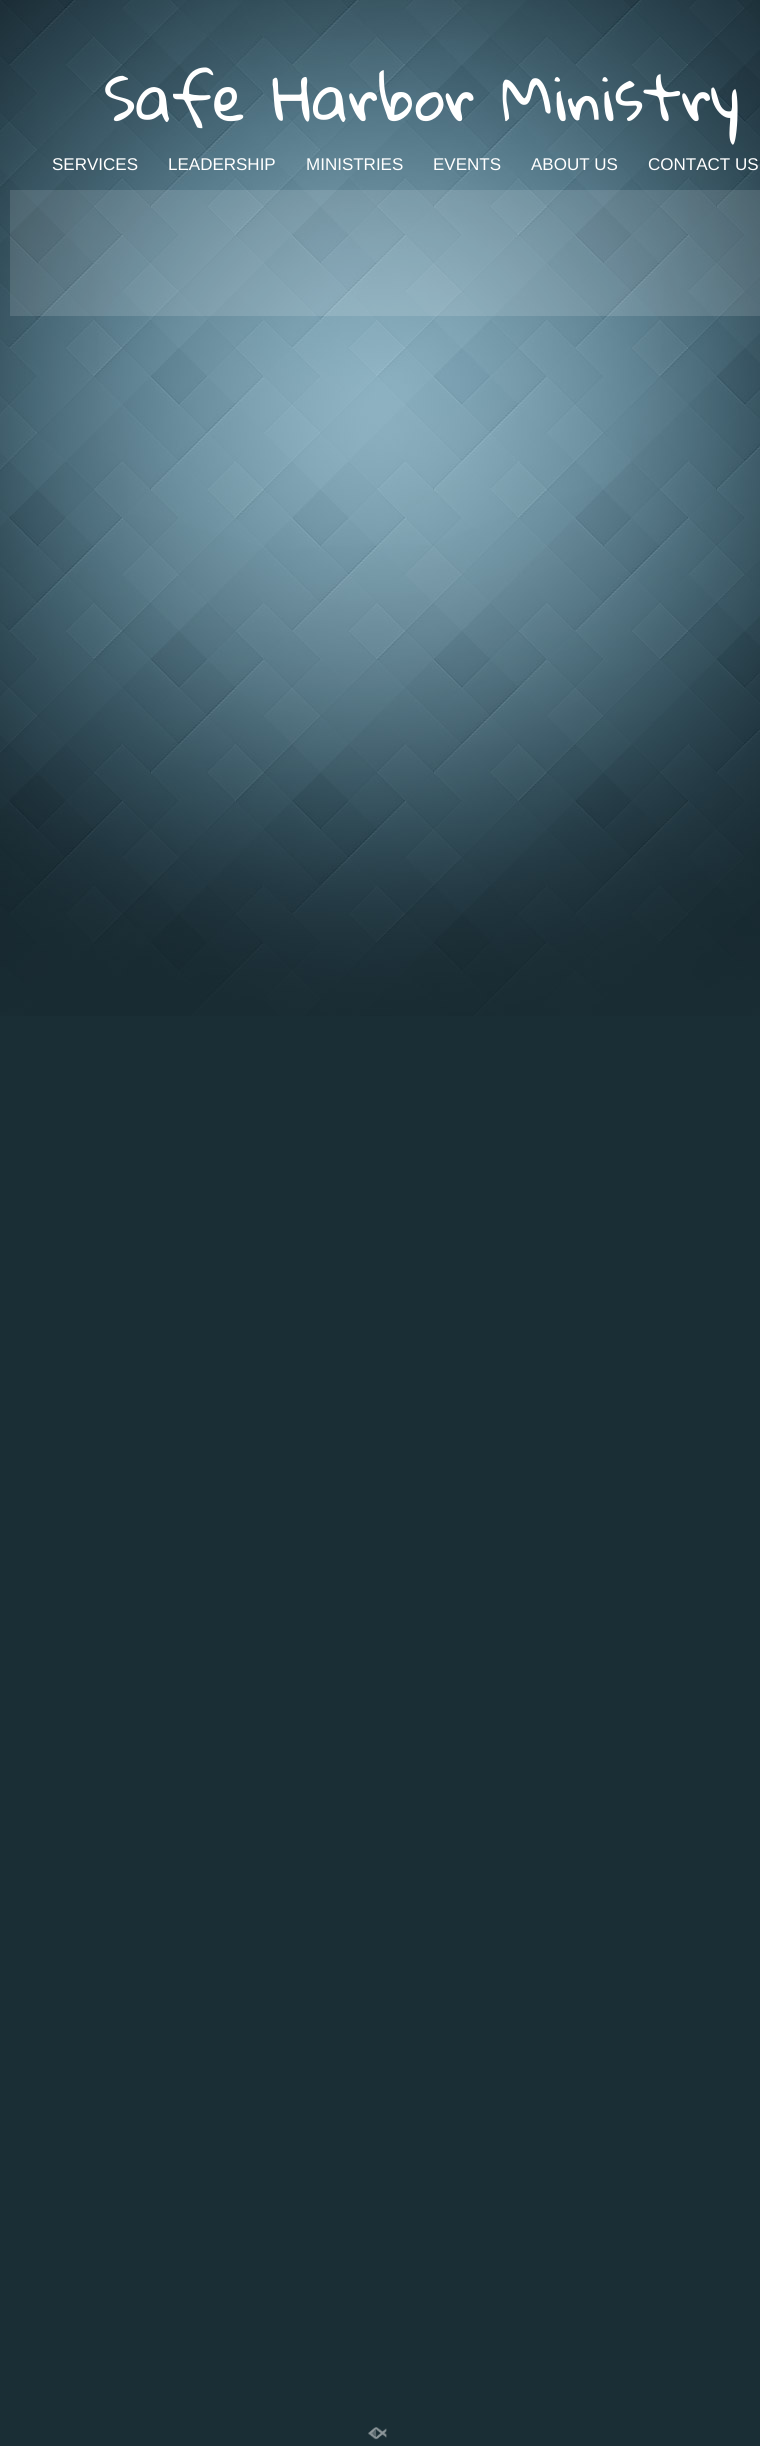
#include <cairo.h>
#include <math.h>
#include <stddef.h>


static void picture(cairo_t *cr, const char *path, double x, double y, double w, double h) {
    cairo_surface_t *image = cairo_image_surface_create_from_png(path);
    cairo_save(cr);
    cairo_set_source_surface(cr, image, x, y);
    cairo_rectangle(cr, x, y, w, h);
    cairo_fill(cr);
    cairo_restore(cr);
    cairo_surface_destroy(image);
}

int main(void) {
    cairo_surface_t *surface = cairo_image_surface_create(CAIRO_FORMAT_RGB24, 760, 2446);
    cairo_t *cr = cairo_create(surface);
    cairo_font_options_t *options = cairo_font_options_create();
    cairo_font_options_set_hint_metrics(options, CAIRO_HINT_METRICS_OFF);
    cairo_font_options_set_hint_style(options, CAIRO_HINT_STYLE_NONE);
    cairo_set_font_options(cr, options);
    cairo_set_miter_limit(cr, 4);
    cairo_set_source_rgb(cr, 0.102, 0.18, 0.208);
    cairo_paint(cr);
    picture(cr, "img1.png", 0, 0, 760, 1016);
    cairo_select_font_face(cr, "Gloria Hallelujah", CAIRO_FONT_SLANT_NORMAL, CAIRO_FONT_WEIGHT_NORMAL);
    cairo_set_font_size(cr, 60);
    cairo_set_source_rgb(cr, 1, 1, 1);
    cairo_move_to(cr, 104, 121);
    cairo_show_text(cr, "Safe Harbor Ministry");
    cairo_select_font_face(cr, "Liberation Sans", CAIRO_FONT_SLANT_NORMAL, CAIRO_FONT_WEIGHT_NORMAL);
    cairo_set_font_size(cr, 17);
    cairo_move_to(cr, 52, 170);
    cairo_show_text(cr, "SERVICES");
    cairo_move_to(cr, 168, 170);
    cairo_show_text(cr, "LEADERSHIP");
    cairo_move_to(cr, 306, 170);
    cairo_show_text(cr, "MINISTRIES");
    cairo_move_to(cr, 433, 170);
    cairo_show_text(cr, "EVENTS");
    cairo_move_to(cr, 531, 170);
    cairo_show_text(cr, "ABOUT US");
    cairo_move_to(cr, 648, 170);
    cairo_show_text(cr, "CONTACT US");
    cairo_set_source_rgba(cr, 1, 1, 1, 0.13);
    cairo_rectangle(cr, 10, 190, 750, 126);
    cairo_fill(cr);
    picture(cr, "img2.png", 368, 2427, 19, 13);
    cairo_surface_write_to_png(surface, "page.png");
    cairo_font_options_destroy(options);
    cairo_destroy(cr);
    cairo_surface_destroy(surface);
    return 0;
}
